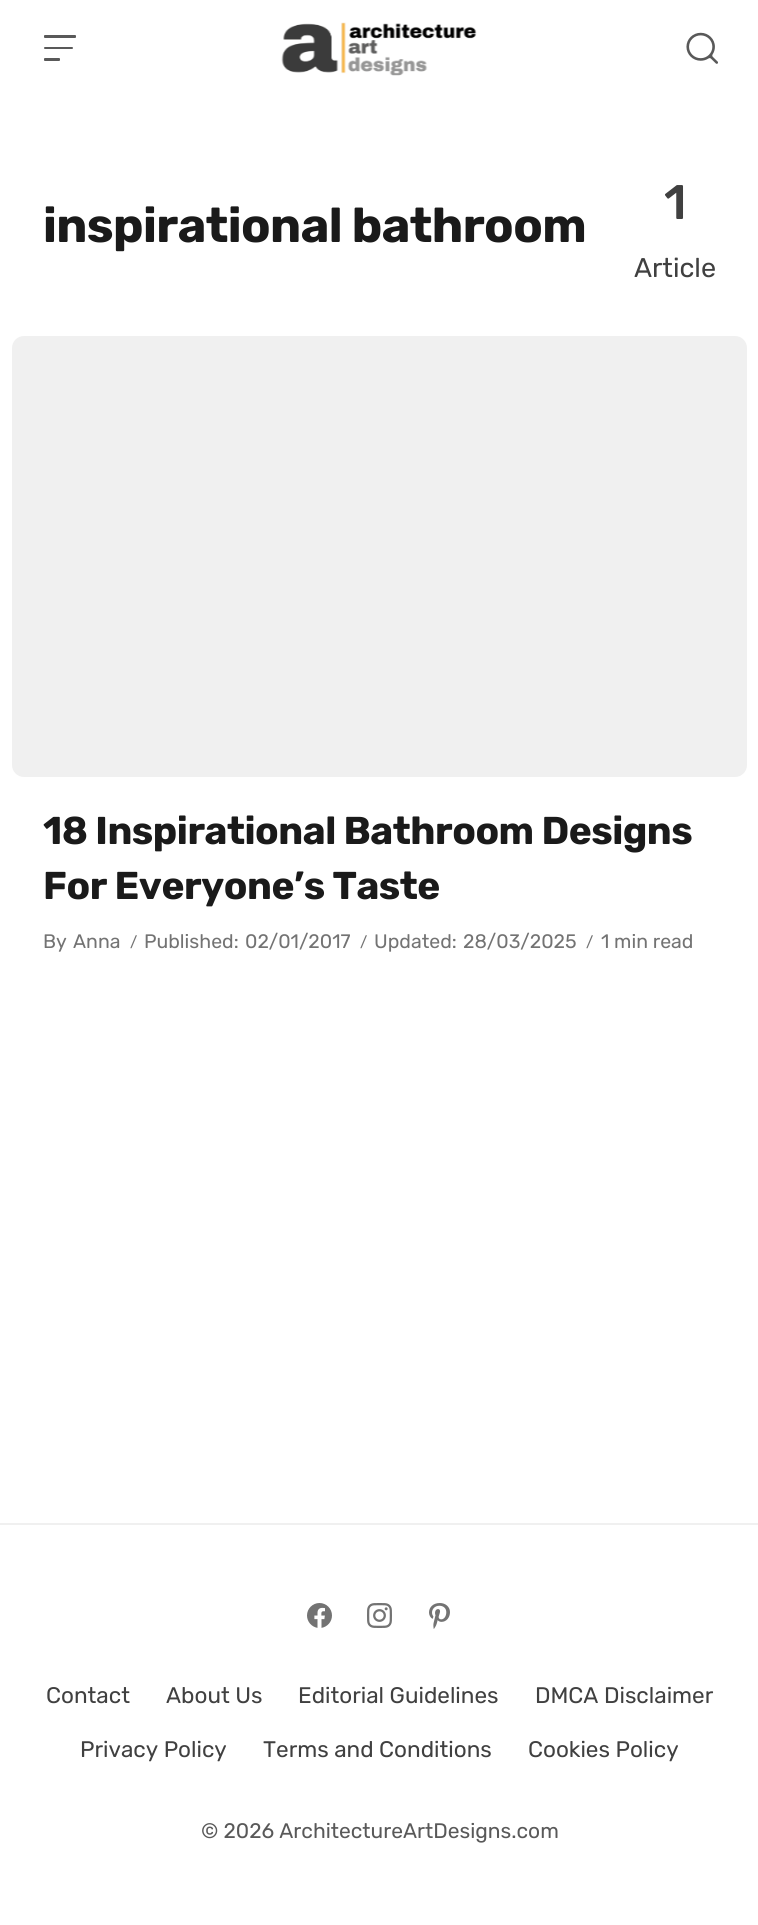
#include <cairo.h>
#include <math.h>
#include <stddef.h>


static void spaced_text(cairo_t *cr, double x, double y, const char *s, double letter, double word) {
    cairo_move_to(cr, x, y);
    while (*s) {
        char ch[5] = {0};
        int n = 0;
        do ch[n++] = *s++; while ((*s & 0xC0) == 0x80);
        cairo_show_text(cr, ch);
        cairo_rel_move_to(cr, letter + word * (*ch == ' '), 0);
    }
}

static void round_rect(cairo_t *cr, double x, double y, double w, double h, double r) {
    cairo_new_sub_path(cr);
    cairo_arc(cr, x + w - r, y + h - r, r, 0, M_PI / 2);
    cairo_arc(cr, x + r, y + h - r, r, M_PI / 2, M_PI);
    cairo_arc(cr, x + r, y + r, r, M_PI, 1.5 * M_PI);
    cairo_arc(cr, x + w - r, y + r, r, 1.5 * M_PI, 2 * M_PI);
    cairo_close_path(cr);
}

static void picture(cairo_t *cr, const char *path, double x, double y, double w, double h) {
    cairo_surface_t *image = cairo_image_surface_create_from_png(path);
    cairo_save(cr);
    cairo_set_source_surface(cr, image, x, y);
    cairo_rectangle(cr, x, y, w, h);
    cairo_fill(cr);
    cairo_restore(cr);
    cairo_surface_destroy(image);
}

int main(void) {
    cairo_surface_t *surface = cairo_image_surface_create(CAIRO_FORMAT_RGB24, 758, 1925);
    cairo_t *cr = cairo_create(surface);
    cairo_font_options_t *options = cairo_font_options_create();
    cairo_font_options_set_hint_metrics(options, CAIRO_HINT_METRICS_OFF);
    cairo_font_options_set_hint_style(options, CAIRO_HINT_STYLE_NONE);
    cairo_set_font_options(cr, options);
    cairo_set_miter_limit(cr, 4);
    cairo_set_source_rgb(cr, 1, 1, 1);
    cairo_paint(cr);
    cairo_set_source_rgb(cr, 0.349, 0.349, 0.349);
    round_rect(cr, 44, 35, 32, 3, 1);
    cairo_fill(cr);
    round_rect(cr, 44, 47, 29, 2, 1);
    cairo_fill(cr);
    round_rect(cr, 44, 58, 16, 3, 1);
    cairo_fill(cr);
    picture(cr, "img1.png", 281, 22, 196, 54);
    picture(cr, "img2.png", 686, 32, 32, 32);
    cairo_select_font_face(cr, "Rubik", CAIRO_FONT_SLANT_NORMAL, CAIRO_FONT_WEIGHT_BOLD);
    cairo_set_font_size(cr, 48.5);
    cairo_set_source_rgb(cr, 0.102, 0.102, 0.102);
    spaced_text(cr, 43, 242, "inspirational bathroom", -0.6, 0);
    cairo_select_font_face(cr, "Rubik Medium", CAIRO_FONT_SLANT_NORMAL, CAIRO_FONT_WEIGHT_NORMAL);
    cairo_set_source_rgb(cr, 0.251, 0.251, 0.251);
    cairo_move_to(cr, 664, 219);
    cairo_show_text(cr, "1");
    cairo_select_font_face(cr, "Rubik", CAIRO_FONT_SLANT_NORMAL, CAIRO_FONT_WEIGHT_NORMAL);
    cairo_set_font_size(cr, 27);
    cairo_move_to(cr, 634, 277);
    cairo_show_text(cr, "Article");
    cairo_set_source_rgb(cr, 0.941, 0.941, 0.941);
    round_rect(cr, 12, 336, 735, 441, 12);
    cairo_fill(cr);
    cairo_select_font_face(cr, "Rubik", CAIRO_FONT_SLANT_NORMAL, CAIRO_FONT_WEIGHT_BOLD);
    cairo_set_font_size(cr, 38.8);
    cairo_set_source_rgb(cr, 0.102, 0.102, 0.102);
    spaced_text(cr, 43, 844, "18 Inspirational Bathroom Designs", -0.5, 0);
    spaced_text(cr, 43, 899, "For Everyone’s Taste", -0.5, 0);
    cairo_select_font_face(cr, "Rubik", CAIRO_FONT_SLANT_NORMAL, CAIRO_FONT_WEIGHT_NORMAL);
    cairo_set_font_size(cr, 19.5);
    cairo_set_source_rgb(cr, 0.451, 0.451, 0.451);
    cairo_move_to(cr, 43, 948);
    cairo_show_text(cr, "By");
    cairo_move_to(cr, 73, 948);
    cairo_show_text(cr, "Anna");
    cairo_set_font_size(cr, 15);
    cairo_move_to(cr, 130, 947);
    cairo_show_text(cr, "/");
    cairo_set_font_size(cr, 19.5);
    cairo_move_to(cr, 144, 948);
    cairo_show_text(cr, "Published:");
    cairo_move_to(cr, 245, 948);
    cairo_show_text(cr, "02/01/2017");
    cairo_set_font_size(cr, 15);
    cairo_move_to(cr, 360, 947);
    cairo_show_text(cr, "/");
    cairo_set_font_size(cr, 19.5);
    cairo_move_to(cr, 374, 948);
    cairo_show_text(cr, "Updated:");
    cairo_move_to(cr, 463, 948);
    cairo_show_text(cr, "28/03/2025");
    cairo_set_font_size(cr, 15);
    cairo_move_to(cr, 586, 947);
    cairo_show_text(cr, "/");
    cairo_set_font_size(cr, 19.5);
    cairo_move_to(cr, 601, 948);
    cairo_show_text(cr, "1 min read");
    cairo_set_source_rgb(cr, 0.941, 0.941, 0.941);
    cairo_rectangle(cr, 0, 1523, 758, 2);
    cairo_fill(cr);
    picture(cr, "img3.png", 307, 1603, 25, 25);
    picture(cr, "img4.png", 367, 1603, 25, 25);
    picture(cr, "img5.png", 429, 1603, 21, 26);
    cairo_set_font_size(cr, 22.5);
    cairo_set_source_rgb(cr, 0.251, 0.251, 0.251);
    cairo_move_to(cr, 46, 1703);
    cairo_show_text(cr, "Contact");
    cairo_move_to(cr, 166, 1703);
    cairo_show_text(cr, "About Us");
    cairo_move_to(cr, 298, 1703);
    cairo_show_text(cr, "Editorial Guidelines");
    cairo_move_to(cr, 535, 1703);
    cairo_show_text(cr, "DMCA Disclaimer");
    cairo_move_to(cr, 80, 1757);
    cairo_show_text(cr, "Privacy Policy");
    cairo_move_to(cr, 263, 1757);
    cairo_show_text(cr, "Terms and Conditions");
    cairo_move_to(cr, 528, 1757);
    cairo_show_text(cr, "Cookies Policy");
    cairo_set_font_size(cr, 21);
    cairo_set_source_rgb(cr, 0.349, 0.349, 0.349);
    cairo_move_to(cr, 201, 1838);
    cairo_show_text(cr, "© 2026 ArchitectureArtDesigns.com");
    cairo_surface_write_to_png(surface, "page.png");
    cairo_font_options_destroy(options);
    cairo_destroy(cr);
    cairo_surface_destroy(surface);
    return 0;
}
